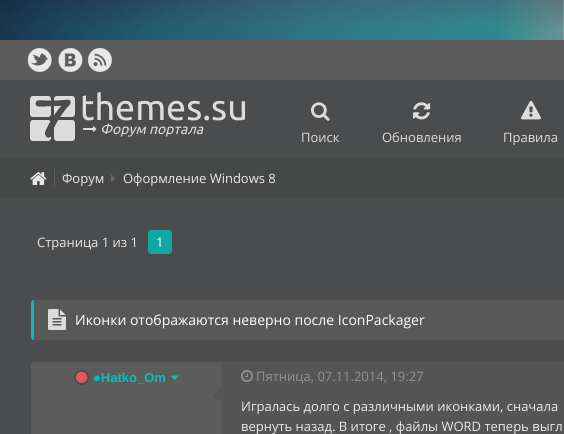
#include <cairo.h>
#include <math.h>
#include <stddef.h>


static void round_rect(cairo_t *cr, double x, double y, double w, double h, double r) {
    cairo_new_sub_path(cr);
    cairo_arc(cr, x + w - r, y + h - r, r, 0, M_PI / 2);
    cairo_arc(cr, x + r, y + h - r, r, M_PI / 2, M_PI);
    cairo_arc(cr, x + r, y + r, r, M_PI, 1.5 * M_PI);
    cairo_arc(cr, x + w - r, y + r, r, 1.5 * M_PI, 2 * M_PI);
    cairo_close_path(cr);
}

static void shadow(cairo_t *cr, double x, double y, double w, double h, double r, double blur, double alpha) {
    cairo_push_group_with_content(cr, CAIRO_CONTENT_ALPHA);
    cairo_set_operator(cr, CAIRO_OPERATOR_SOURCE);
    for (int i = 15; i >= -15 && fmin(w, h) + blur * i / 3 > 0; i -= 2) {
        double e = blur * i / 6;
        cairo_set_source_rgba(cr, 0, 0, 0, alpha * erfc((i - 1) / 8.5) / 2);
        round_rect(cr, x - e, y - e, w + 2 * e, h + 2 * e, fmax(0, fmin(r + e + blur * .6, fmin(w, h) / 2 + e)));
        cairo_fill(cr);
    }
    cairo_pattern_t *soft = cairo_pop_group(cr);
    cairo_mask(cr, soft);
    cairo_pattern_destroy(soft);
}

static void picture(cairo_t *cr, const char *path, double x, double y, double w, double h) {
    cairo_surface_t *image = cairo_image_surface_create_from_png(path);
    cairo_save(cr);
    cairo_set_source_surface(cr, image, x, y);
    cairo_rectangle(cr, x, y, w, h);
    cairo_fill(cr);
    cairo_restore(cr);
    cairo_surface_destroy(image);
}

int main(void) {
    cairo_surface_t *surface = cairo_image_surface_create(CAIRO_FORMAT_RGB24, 564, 434);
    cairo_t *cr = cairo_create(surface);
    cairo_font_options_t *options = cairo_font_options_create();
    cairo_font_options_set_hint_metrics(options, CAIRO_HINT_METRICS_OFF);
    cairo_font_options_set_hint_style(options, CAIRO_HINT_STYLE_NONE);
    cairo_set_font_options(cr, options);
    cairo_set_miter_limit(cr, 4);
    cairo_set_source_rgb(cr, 1, 1, 1);
    cairo_paint(cr);
    picture(cr, "img1.png", 0, 0, 564, 40);
    cairo_set_source_rgb(cr, 0, 0, 0);
    shadow(cr, 0, 40, 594, 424, 0, 10, 0.1);
    cairo_set_source_rgb(cr, 0.294, 0.298, 0.302);
    cairo_rectangle(cr, 0, 80, 564, 354);
    cairo_fill(cr);
    cairo_set_source_rgb(cr, 0.361, 0.361, 0.361);
    cairo_rectangle(cr, 0, 40, 564, 40);
    cairo_fill(cr);
    picture(cr, "img2.png", 28, 48, 24, 24);
    picture(cr, "img3.png", 58, 48, 25, 24);
    picture(cr, "img4.png", 88, 48, 24, 24);
    picture(cr, "img5.png", 30, 96, 45, 45);
    cairo_select_font_face(cr, "Ubuntu", CAIRO_FONT_SLANT_NORMAL, CAIRO_FONT_WEIGHT_NORMAL);
    cairo_set_font_size(cr, 36);
    cairo_set_source_rgb(cr, 0.867, 0.863, 0.863);
    cairo_move_to(cr, 80, 120);
    cairo_show_text(cr, "themes.su");
    picture(cr, "img6.png", 83, 126, 14, 6);
    cairo_select_font_face(cr, "Ubuntu", CAIRO_FONT_SLANT_ITALIC, CAIRO_FONT_WEIGHT_NORMAL);
    cairo_set_font_size(cr, 14);
    cairo_move_to(cr, 100, 134);
    cairo_show_text(cr, "Форум портала");
    picture(cr, "img7.png", 311, 102, 19, 19);
    cairo_select_font_face(cr, "Open Sans", CAIRO_FONT_SLANT_NORMAL, CAIRO_FONT_WEIGHT_NORMAL);
    cairo_set_font_size(cr, 13);
    cairo_move_to(cr, 301, 142);
    cairo_show_text(cr, "Поиск");
    picture(cr, "img8.png", 413, 102, 18, 18);
    cairo_move_to(cr, 382, 142);
    cairo_show_text(cr, "Обновления");
    picture(cr, "img9.png", 521, 100, 20, 20);
    cairo_move_to(cr, 503, 142);
    cairo_show_text(cr, "Правила");
    cairo_set_source_rgb(cr, 0.275, 0.278, 0.278);
    cairo_rectangle(cr, 0, 158, 564, 40);
    cairo_fill(cr);
    picture(cr, "img10.png", 30, 172, 17, 13);
    cairo_set_source_rgb(cr, 0.361, 0.361, 0.361);
    cairo_rectangle(cr, 54, 169, 1, 18);
    cairo_fill(cr);
    cairo_set_source_rgb(cr, 0.91, 0.91, 0.91);
    cairo_move_to(cr, 62, 183);
    cairo_show_text(cr, "Форум");
    picture(cr, "img11.png", 111, 174, 4, 8);
    cairo_move_to(cr, 123, 183);
    cairo_show_text(cr, "Оформление Windows 8");
    cairo_move_to(cr, 37, 247);
    cairo_show_text(cr, "Страница 1 из 1");
    cairo_set_source_rgb(cr, 0.055, 0.655, 0.643);
    round_rect(cr, 148, 230, 24, 24, 3);
    cairo_fill(cr);
    cairo_set_source_rgb(cr, 1, 1, 1);
    cairo_move_to(cr, 156, 247);
    cairo_show_text(cr, "1");
    cairo_set_source_rgb(cr, 0.345, 0.345, 0.345);
    round_rect(cr, 31, 300, 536, 40, 3);
    cairo_fill(cr);
    cairo_set_source_rgb(cr, 0.035, 0.745, 0.737);
    cairo_new_path(cr);
    cairo_move_to(cr, 34, 300);
    cairo_line_to(cr, 34, 340);
    cairo_curve_to(cr, 32.5, 340, 31, 338.5, 31, 337);
    cairo_line_to(cr, 31, 303);
    cairo_curve_to(cr, 31, 301.5, 32.5, 300, 34, 300);
    cairo_close_path(cr);
    cairo_fill(cr);
    picture(cr, "img12.png", 48, 309, 18, 21);
    cairo_set_font_size(cr, 14);
    cairo_set_source_rgb(cr, 1, 1, 1);
    cairo_move_to(cr, 75, 325);
    cairo_show_text(cr, "Иконки отображаются неверно после IconPackager");
    cairo_set_source_rgb(cr, 0.361, 0.361, 0.361);
    cairo_new_path(cr);
    cairo_move_to(cr, 34, 362);
    cairo_line_to(cr, 221, 362);
    cairo_line_to(cr, 221, 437);
    cairo_line_to(cr, 34, 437);
    cairo_curve_to(cr, 32.5, 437, 31, 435.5, 31, 434);
    cairo_line_to(cr, 31, 365);
    cairo_curve_to(cr, 31, 363.5, 32.5, 362, 34, 362);
    cairo_close_path(cr);
    cairo_fill(cr);
    cairo_arc(cr, 81.5, 377.5, 6.5, 0, 2 * M_PI);
    cairo_set_source_rgb(cr, 0.294, 0.298, 0.302);
    cairo_stroke(cr);
    picture(cr, "img13.png", 76, 371, 12, 12);
    cairo_select_font_face(cr, "Liberation Sans", CAIRO_FONT_SLANT_NORMAL, CAIRO_FONT_WEIGHT_BOLD);
    cairo_set_font_size(cr, 13);
    cairo_set_source_rgb(cr, 0.035, 0.745, 0.737);
    cairo_move_to(cr, 93, 382);
    cairo_show_text(cr, "●Hatko_Om");
    picture(cr, "img14.png", 171, 375, 8, 5);
    cairo_set_source_rgb(cr, 0.333, 0.333, 0.333);
    cairo_rectangle(cr, 221, 362, 343, 72);
    cairo_fill(cr);
    picture(cr, "img15.png", 241, 370, 12, 12);
    cairo_select_font_face(cr, "Open Sans", CAIRO_FONT_SLANT_NORMAL, CAIRO_FONT_WEIGHT_NORMAL);
    cairo_set_source_rgb(cr, 0.584, 0.573, 0.573);
    cairo_move_to(cr, 256, 381);
    cairo_show_text(cr, "Пятница, 07.11.2014, 19:27");
    cairo_set_source_rgb(cr, 0.333, 0.333, 0.333);
    cairo_new_path(cr);
    cairo_move_to(cr, 221, 387);
    cairo_line_to(cr, 221, 403);
    cairo_line_to(cr, 213, 395);
    cairo_close_path(cr);
    cairo_fill(cr);
    cairo_set_source_rgb(cr, 0.91, 0.91, 0.91);
    cairo_move_to(cr, 241, 411);
    cairo_show_text(cr, "Игралась долго с различными иконками, сначала");
    cairo_move_to(cr, 241, 431);
    cairo_show_text(cr, "вернуть назад. В итоге , файлы WORD теперь выгл");
    cairo_surface_write_to_png(surface, "page.png");
    cairo_font_options_destroy(options);
    cairo_destroy(cr);
    cairo_surface_destroy(surface);
    return 0;
}
